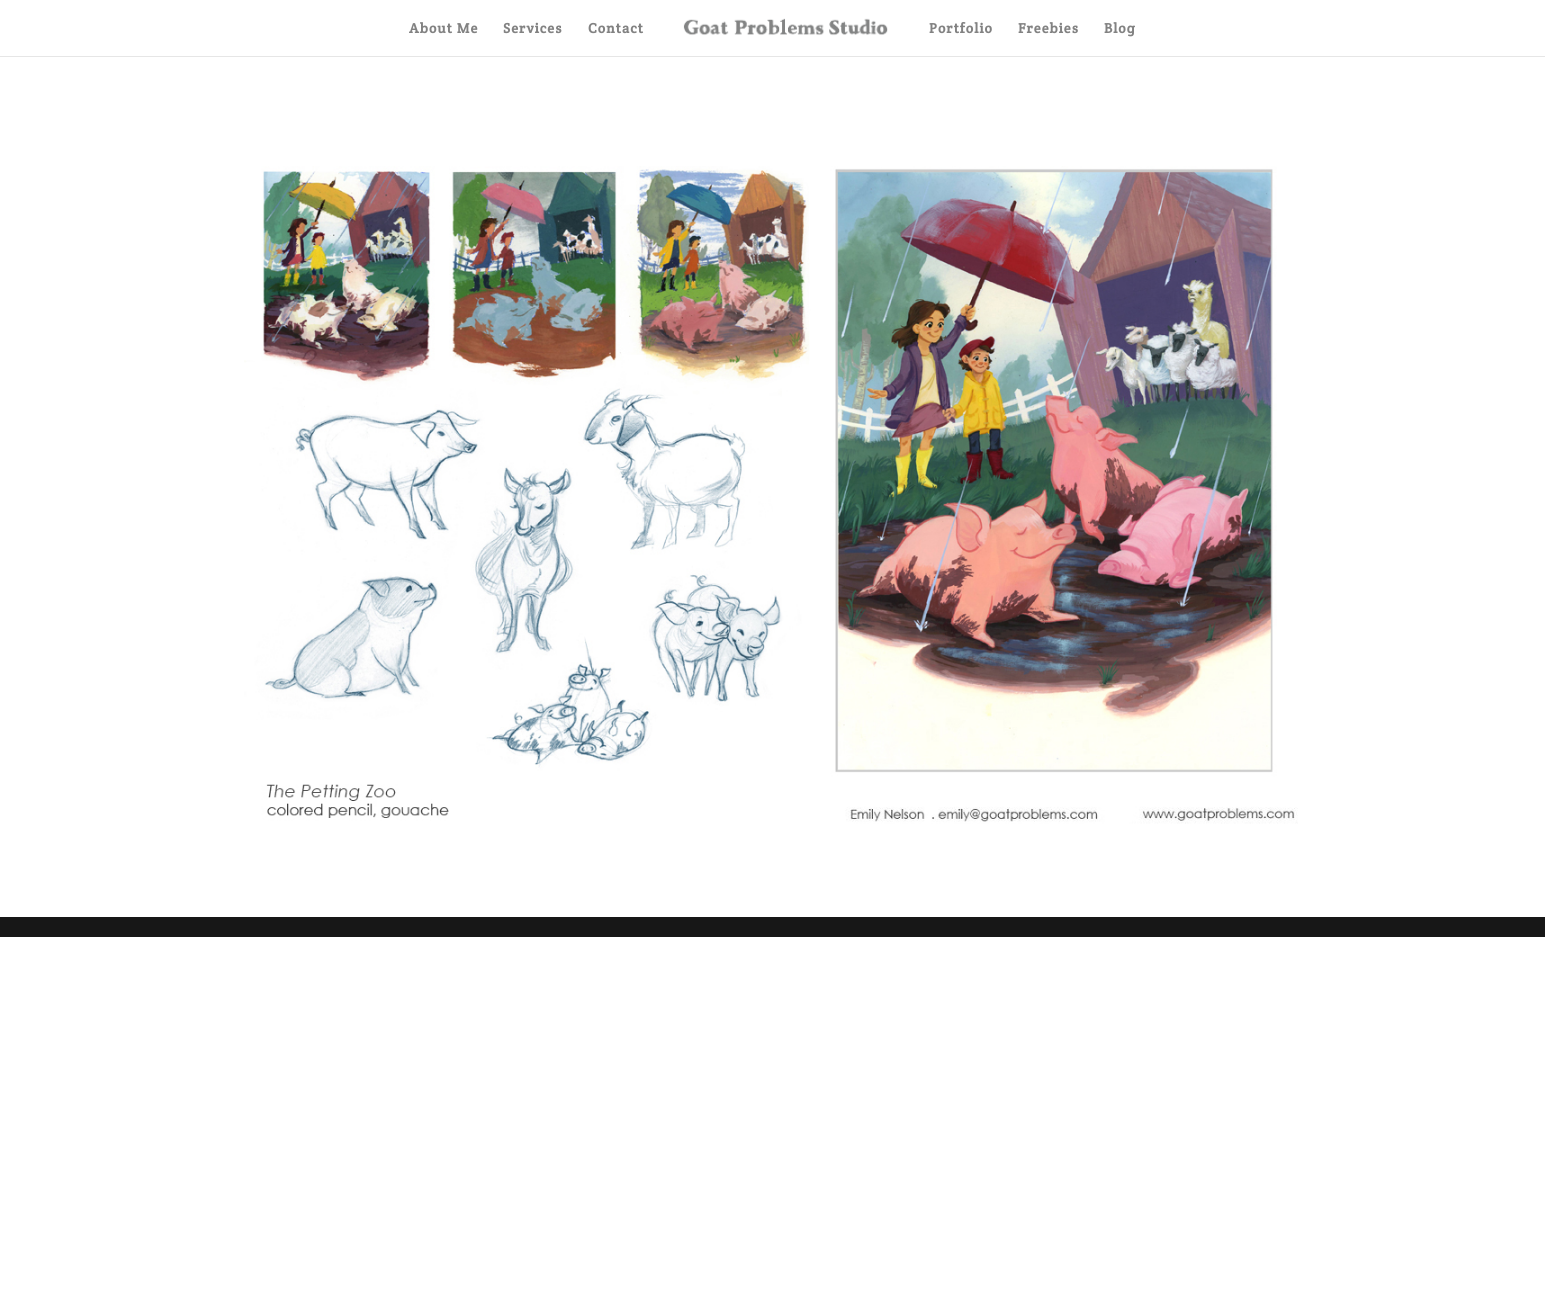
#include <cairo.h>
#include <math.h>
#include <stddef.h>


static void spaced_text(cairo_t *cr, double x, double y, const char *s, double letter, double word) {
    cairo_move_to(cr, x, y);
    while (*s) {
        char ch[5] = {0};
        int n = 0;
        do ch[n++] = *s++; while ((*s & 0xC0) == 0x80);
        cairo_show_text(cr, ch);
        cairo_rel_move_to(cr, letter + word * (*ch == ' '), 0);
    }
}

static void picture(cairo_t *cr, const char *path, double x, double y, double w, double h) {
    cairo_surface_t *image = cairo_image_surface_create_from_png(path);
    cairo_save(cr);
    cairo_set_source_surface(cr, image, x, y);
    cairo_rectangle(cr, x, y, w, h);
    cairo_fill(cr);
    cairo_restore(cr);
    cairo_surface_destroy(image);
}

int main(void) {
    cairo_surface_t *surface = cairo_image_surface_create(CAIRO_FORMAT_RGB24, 1545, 1296);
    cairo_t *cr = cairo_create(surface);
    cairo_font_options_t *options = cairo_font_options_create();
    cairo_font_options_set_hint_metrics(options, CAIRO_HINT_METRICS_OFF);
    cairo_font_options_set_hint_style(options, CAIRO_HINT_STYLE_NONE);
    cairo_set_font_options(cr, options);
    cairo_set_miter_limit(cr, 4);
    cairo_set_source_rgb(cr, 1, 1, 1);
    cairo_paint(cr);
    cairo_set_source_rgb(cr, 0.902, 0.902, 0.902);
    cairo_rectangle(cr, 0, 56, 1545, 1);
    cairo_fill(cr);
    cairo_select_font_face(cr, "Crete Round", CAIRO_FONT_SLANT_NORMAL, CAIRO_FONT_WEIGHT_BOLD);
    cairo_set_font_size(cr, 14);
    cairo_set_source_rgb(cr, 0.51, 0.51, 0.51);
    spaced_text(cr, 409, 33, "About Me", 1, 0);
    spaced_text(cr, 503, 33, "Services", 1, 0);
    spaced_text(cr, 588, 33, "Contact", 1, 0);
    picture(cr, "img1.png", 683, 18, 205, 18);
    spaced_text(cr, 929, 33, "Portfolio", 1, 0);
    spaced_text(cr, 1018, 33, "Freebies", 1, 0);
    spaced_text(cr, 1104, 33, "Blog", 1, 0);
    picture(cr, "img2.png", 244, 166, 1054, 658);
    cairo_set_source_rgb(cr, 0.09, 0.09, 0.09);
    cairo_rectangle(cr, 0, 917, 1545, 20);
    cairo_fill(cr);
    cairo_surface_write_to_png(surface, "page.png");
    cairo_font_options_destroy(options);
    cairo_destroy(cr);
    cairo_surface_destroy(surface);
    return 0;
}
